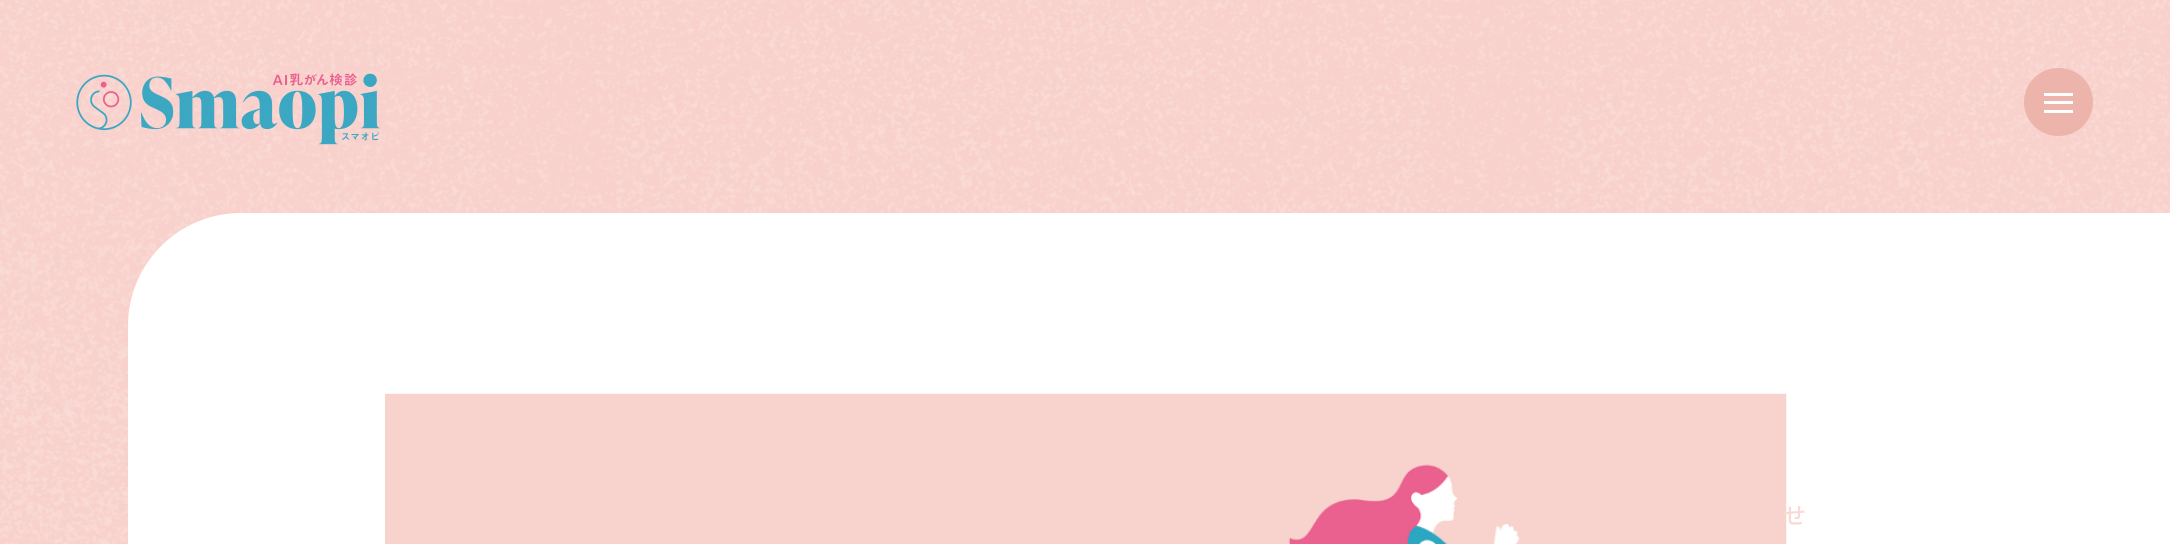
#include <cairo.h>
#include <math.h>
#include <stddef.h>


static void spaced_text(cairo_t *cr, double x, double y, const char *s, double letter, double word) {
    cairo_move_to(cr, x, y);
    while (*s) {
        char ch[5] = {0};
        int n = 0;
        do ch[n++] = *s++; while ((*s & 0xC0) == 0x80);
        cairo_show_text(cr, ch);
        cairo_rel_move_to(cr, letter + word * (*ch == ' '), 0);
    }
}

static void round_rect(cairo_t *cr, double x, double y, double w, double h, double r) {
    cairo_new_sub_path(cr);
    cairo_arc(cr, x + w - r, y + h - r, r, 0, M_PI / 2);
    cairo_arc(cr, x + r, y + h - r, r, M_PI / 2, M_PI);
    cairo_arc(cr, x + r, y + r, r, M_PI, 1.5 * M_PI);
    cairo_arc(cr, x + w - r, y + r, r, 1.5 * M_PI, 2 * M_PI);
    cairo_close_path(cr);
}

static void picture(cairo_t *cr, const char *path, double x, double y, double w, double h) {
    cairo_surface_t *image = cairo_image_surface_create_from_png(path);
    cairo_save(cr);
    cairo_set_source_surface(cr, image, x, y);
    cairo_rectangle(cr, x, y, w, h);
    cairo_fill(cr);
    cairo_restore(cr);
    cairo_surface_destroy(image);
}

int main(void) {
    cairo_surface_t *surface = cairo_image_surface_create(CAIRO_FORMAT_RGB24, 2170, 544);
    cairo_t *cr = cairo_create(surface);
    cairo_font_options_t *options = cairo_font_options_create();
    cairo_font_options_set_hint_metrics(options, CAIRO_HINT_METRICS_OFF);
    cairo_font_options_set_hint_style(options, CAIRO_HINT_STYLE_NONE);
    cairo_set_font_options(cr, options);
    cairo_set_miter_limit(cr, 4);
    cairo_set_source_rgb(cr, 1, 1, 1);
    cairo_paint(cr);
    picture(cr, "img1.png", 0, 0, 2170, 544);
    cairo_set_source_rgb(cr, 0.925, 0.706, 0.671);
    round_rect(cr, 2024, 68, 69, 68, 34);
    cairo_fill(cr);
    cairo_set_source_rgb(cr, 1, 1, 1);
    cairo_rectangle(cr, 2044, 93, 29, 3);
    cairo_fill(cr);
    cairo_rectangle(cr, 2044, 101, 29, 3);
    cairo_fill(cr);
    cairo_rectangle(cr, 2044, 110, 29, 3);
    cairo_fill(cr);
    picture(cr, "img2.png", 76, 73, 304, 72);
    cairo_new_path(cr);
    cairo_move_to(cr, 241, 213);
    cairo_line_to(cr, 2170, 213);
    cairo_line_to(cr, 2170, 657);
    cairo_line_to(cr, 128, 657);
    cairo_line_to(cr, 128, 326);
    cairo_curve_to(cr, 128, 263.5, 178.5, 213, 241, 213);
    cairo_close_path(cr);
    cairo_fill(cr);
    picture(cr, "img3.png", 385, 393, 1402, 151);
    cairo_select_font_face(cr, "Noto Sans JP Medium", CAIRO_FONT_SLANT_NORMAL, CAIRO_FONT_WEIGHT_NORMAL);
    cairo_set_font_size(cr, 23);
    cairo_set_source_rgb(cr, 0.976, 0.851, 0.835);
    spaced_text(cr, 1783, 524, "せ", 3, 0);
    cairo_surface_write_to_png(surface, "page.png");
    cairo_font_options_destroy(options);
    cairo_destroy(cr);
    cairo_surface_destroy(surface);
    return 0;
}
